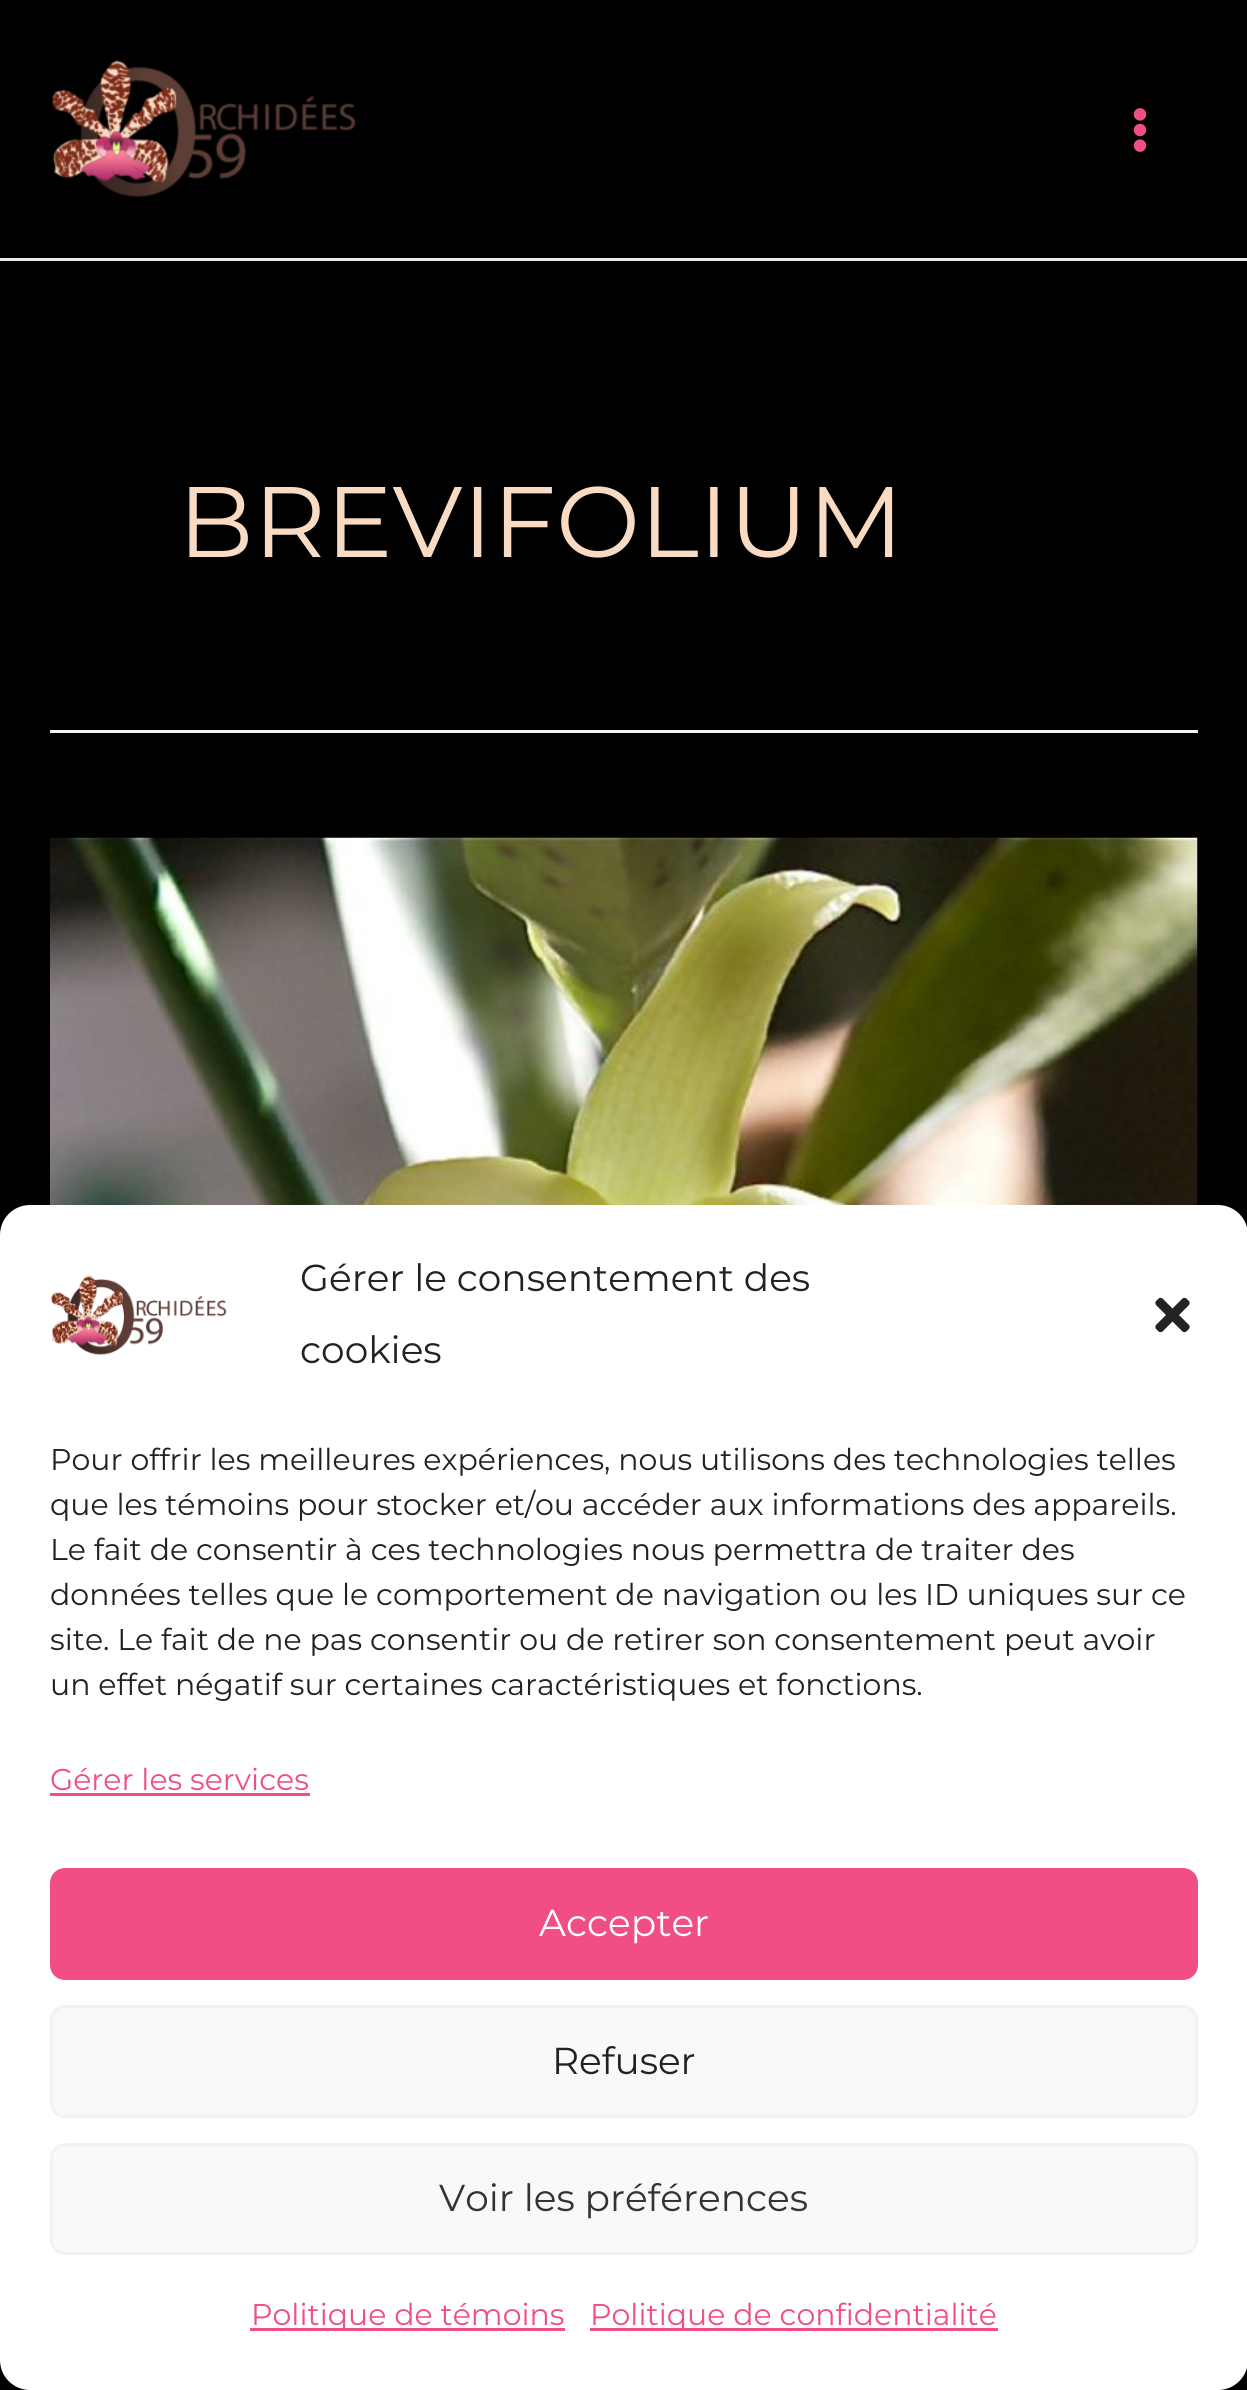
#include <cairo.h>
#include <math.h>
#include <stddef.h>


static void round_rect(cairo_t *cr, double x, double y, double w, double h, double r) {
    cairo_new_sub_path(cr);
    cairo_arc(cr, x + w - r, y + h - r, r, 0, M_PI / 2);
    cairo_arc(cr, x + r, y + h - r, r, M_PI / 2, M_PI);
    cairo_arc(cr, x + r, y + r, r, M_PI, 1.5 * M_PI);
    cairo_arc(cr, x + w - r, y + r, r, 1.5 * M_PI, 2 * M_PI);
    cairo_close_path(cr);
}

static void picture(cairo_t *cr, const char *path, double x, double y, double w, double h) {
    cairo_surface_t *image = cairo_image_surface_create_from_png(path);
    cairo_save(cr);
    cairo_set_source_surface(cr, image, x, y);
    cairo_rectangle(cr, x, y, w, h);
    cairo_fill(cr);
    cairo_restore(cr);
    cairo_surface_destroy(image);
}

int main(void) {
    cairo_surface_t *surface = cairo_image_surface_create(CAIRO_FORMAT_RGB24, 1247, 2390);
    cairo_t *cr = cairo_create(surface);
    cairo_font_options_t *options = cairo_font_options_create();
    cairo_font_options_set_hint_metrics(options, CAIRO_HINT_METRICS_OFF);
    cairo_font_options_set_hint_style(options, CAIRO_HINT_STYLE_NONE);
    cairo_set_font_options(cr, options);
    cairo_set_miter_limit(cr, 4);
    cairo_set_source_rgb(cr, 0, 0, 0);
    cairo_paint(cr);
    cairo_set_source_rgb(cr, 0.918, 0.918, 0.918);
    cairo_rectangle(cr, 0, 258, 1247, 3);
    cairo_fill(cr);
    picture(cr, "img1.png", 51, 60, 305, 137);
    picture(cr, "img2.png", 1133, 108, 14, 44);
    cairo_set_source_rgb(cr, 0.957, 0.957, 0.957);
    cairo_rectangle(cr, 50, 730, 1148, 3);
    cairo_fill(cr);
    cairo_select_font_face(cr, "Montserrat", CAIRO_FONT_SLANT_NORMAL, CAIRO_FONT_WEIGHT_NORMAL);
    cairo_set_font_size(cr, 100);
    cairo_set_source_rgb(cr, 0.976, 0.855, 0.761);
    cairo_move_to(cr, 178, 557);
    cairo_show_text(cr, "BREVIFOLIUM");
    picture(cr, "img3.png", 50, 837, 1148, 368);
    cairo_set_source_rgb(cr, 1, 1, 1);
    round_rect(cr, 0, 1205, 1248, 1185, 30);
    cairo_fill(cr);
    picture(cr, "img4.png", 51, 1275, 176, 81);
    cairo_set_font_size(cr, 37.5);
    cairo_set_source_rgb(cr, 0.133, 0.133, 0.133);
    cairo_move_to(cr, 300, 1291);
    cairo_show_text(cr, "Gérer le consentement des");
    cairo_move_to(cr, 300, 1363);
    cairo_show_text(cr, "cookies");
    picture(cr, "img5.png", 1155, 1297, 35, 36);
    cairo_set_font_size(cr, 30);
    cairo_move_to(cr, 50, 1470);
    cairo_show_text(cr, "Pour offrir les meilleures expériences, nous utilisons des technologies telles");
    cairo_move_to(cr, 50, 1515);
    cairo_show_text(cr, "que les témoins pour stocker et/ou accéder aux informations des appareils.");
    cairo_move_to(cr, 50, 1560);
    cairo_show_text(cr, "Le fait de consentir à ces technologies nous permettra de traiter des");
    cairo_move_to(cr, 50, 1605);
    cairo_show_text(cr, "données telles que le comportement de navigation ou les ID uniques sur ce");
    cairo_move_to(cr, 50, 1650);
    cairo_show_text(cr, "site. Le fait de ne pas consentir ou de retirer son consentement peut avoir");
    cairo_move_to(cr, 50, 1695);
    cairo_show_text(cr, "un effet négatif sur certaines caractéristiques et fonctions.");
    cairo_set_source_rgb(cr, 0.941, 0.306, 0.522);
    cairo_move_to(cr, 50, 1790);
    cairo_show_text(cr, "Gérer les services");
    cairo_rectangle(cr, 50, 1793, 260, 3);
    cairo_fill(cr);
    round_rect(cr, 51.5, 1869.5, 1145, 109, 13.5);
    cairo_fill_preserve(cr);
    cairo_set_line_width(cr, 3);
    cairo_stroke(cr);
    cairo_set_font_size(cr, 37.5);
    cairo_set_source_rgb(cr, 1, 1, 1);
    cairo_move_to(cr, 539, 1936);
    cairo_show_text(cr, "Accepter");
    cairo_set_source_rgb(cr, 0.976, 0.976, 0.976);
    round_rect(cr, 51.5, 2006.5, 1145, 110, 13.5);
    cairo_fill_preserve(cr);
    cairo_set_source_rgb(cr, 0.949, 0.949, 0.949);
    cairo_stroke(cr);
    cairo_set_source_rgb(cr, 0.133, 0.133, 0.133);
    cairo_move_to(cr, 552, 2074);
    cairo_show_text(cr, "Refuser");
    cairo_set_source_rgb(cr, 0.976, 0.976, 0.976);
    round_rect(cr, 51.5, 2144.5, 1145, 109, 13.5);
    cairo_fill_preserve(cr);
    cairo_set_source_rgb(cr, 0.949, 0.949, 0.949);
    cairo_stroke(cr);
    cairo_set_source_rgb(cr, 0.2, 0.2, 0.2);
    cairo_move_to(cr, 439, 2211);
    cairo_show_text(cr, "Voir les préférences");
    cairo_set_source_rgb(cr, 0.941, 0.306, 0.522);
    cairo_rectangle(cr, 250, 2328, 315, 3);
    cairo_fill(cr);
    cairo_set_font_size(cr, 30);
    cairo_move_to(cr, 251, 2325);
    cairo_show_text(cr, "Politique de témoins");
    cairo_rectangle(cr, 590, 2328, 408, 3);
    cairo_fill(cr);
    cairo_move_to(cr, 590, 2325);
    cairo_show_text(cr, "Politique de confidentialité");
    cairo_surface_write_to_png(surface, "page.png");
    cairo_font_options_destroy(options);
    cairo_destroy(cr);
    cairo_surface_destroy(surface);
    return 0;
}
